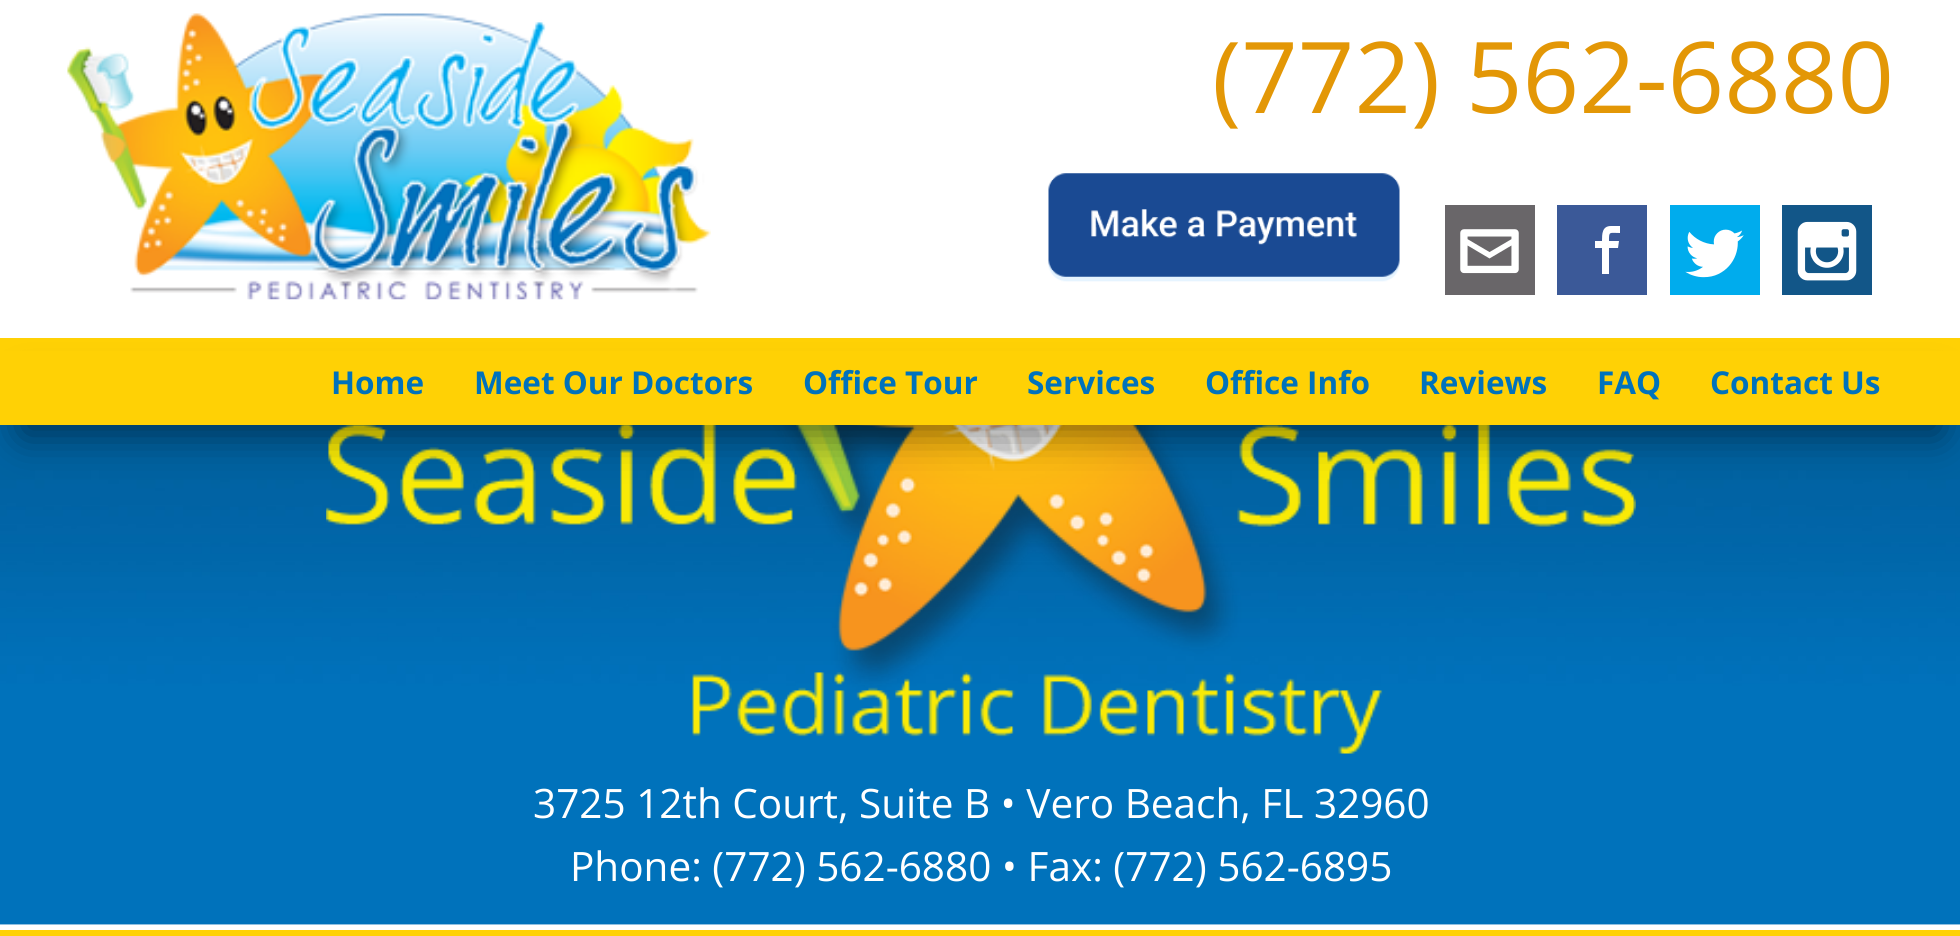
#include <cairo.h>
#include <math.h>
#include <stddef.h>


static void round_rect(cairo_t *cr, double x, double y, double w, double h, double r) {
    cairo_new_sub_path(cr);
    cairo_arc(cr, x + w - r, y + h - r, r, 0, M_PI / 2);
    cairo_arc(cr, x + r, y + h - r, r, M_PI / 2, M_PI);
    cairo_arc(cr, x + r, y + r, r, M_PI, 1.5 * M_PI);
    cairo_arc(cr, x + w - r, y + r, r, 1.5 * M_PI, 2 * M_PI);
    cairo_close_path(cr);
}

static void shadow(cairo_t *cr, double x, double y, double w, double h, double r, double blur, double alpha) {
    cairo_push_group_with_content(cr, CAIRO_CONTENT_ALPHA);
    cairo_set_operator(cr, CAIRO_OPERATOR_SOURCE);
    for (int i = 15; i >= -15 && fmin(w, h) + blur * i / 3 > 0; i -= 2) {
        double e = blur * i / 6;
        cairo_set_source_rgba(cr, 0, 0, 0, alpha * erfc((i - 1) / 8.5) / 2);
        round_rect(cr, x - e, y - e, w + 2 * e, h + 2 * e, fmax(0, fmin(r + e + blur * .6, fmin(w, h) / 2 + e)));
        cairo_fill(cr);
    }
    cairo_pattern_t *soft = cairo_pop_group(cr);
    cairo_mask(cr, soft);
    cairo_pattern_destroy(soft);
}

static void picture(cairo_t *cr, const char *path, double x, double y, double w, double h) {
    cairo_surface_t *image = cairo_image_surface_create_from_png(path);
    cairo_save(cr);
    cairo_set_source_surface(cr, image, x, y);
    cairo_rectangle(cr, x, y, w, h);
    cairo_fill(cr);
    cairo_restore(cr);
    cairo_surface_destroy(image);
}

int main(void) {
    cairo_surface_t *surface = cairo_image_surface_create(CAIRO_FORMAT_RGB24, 1960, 936);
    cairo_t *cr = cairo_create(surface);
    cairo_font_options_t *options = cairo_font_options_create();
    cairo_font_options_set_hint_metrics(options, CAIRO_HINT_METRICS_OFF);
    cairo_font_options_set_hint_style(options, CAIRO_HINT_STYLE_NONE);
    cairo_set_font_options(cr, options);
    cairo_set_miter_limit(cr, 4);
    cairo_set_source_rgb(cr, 1, 0.82, 0.02);
    cairo_paint(cr);
    cairo_set_source_rgb(cr, 1, 1, 1);
    cairo_rectangle(cr, 0, 0, 1960, 338);
    cairo_fill(cr);
    picture(cr, "img1.png", 67, 13, 644, 287);
    cairo_select_font_face(cr, "Open Sans", CAIRO_FONT_SLANT_NORMAL, CAIRO_FONT_WEIGHT_NORMAL);
    cairo_set_font_size(cr, 99);
    cairo_set_source_rgb(cr, 0.89, 0.592, 0.024);
    cairo_move_to(cr, 1212, 113);
    cairo_show_text(cr, "(772) 562-6880");
    picture(cr, "img2.png", 1048, 173, 352, 109);
    cairo_set_source_rgb(cr, 0.412, 0.4, 0.412);
    cairo_rectangle(cr, 1445, 205, 90, 90);
    cairo_fill(cr);
    picture(cr, "img3.png", 1460, 229, 59, 45);
    cairo_set_source_rgb(cr, 0.231, 0.349, 0.596);
    cairo_rectangle(cr, 1557, 205, 90, 90);
    cairo_fill(cr);
    cairo_set_source_rgb(cr, 1, 1, 1);
    cairo_new_path(cr);
    cairo_move_to(cr, 1611, 226);
    cairo_curve_to(cr, 1602, 226, 1602, 234, 1602, 241);
    cairo_line_to(cr, 1595, 241);
    cairo_line_to(cr, 1595, 248);
    cairo_line_to(cr, 1602, 248);
    cairo_line_to(cr, 1602, 274);
    cairo_line_to(cr, 1609, 274);
    cairo_line_to(cr, 1609, 248);
    cairo_line_to(cr, 1618, 248);
    cairo_line_to(cr, 1619, 241);
    cairo_line_to(cr, 1609, 241);
    cairo_curve_to(cr, 1609, 231, 1609, 233, 1620, 233);
    cairo_line_to(cr, 1620, 226);
    cairo_close_path(cr);
    cairo_fill(cr);
    cairo_set_source_rgb(cr, 0, 0.675, 0.929);
    cairo_rectangle(cr, 1670, 205, 90, 90);
    cairo_fill(cr);
    picture(cr, "img4.png", 1685, 229, 59, 49);
    cairo_set_source_rgb(cr, 0.071, 0.337, 0.533);
    cairo_rectangle(cr, 1782, 205, 90, 90);
    cairo_fill(cr);
    picture(cr, "img5.png", 1797, 221, 60, 60);
    cairo_set_source_rgb(cr, 1, 1, 1);
    cairo_rectangle(cr, 0, 924, 1960, 6);
    cairo_fill(cr);
    picture(cr, "img7.png", 0, 924, 1960, 1);
    picture(cr, "img6.png", 0, 425, 1960, 500);
    picture(cr, "img8.png", 326, 425, 1310, 329);
    cairo_set_source_rgb(cr, 0, 0, 0);
    shadow(cr, 23, 392, 1917, 42, 0, 20, 0.5);
    cairo_set_source_rgb(cr, 1, 0.82, 0.02);
    cairo_rectangle(cr, 0, 351, 1960, 74);
    cairo_fill(cr);
    cairo_select_font_face(cr, "Open Sans", CAIRO_FONT_SLANT_NORMAL, CAIRO_FONT_WEIGHT_BOLD);
    cairo_set_font_size(cr, 31.5);
    cairo_set_source_rgb(cr, 0, 0.447, 0.737);
    cairo_move_to(cr, 331, 394);
    cairo_show_text(cr, "Home");
    cairo_move_to(cr, 474, 394);
    cairo_show_text(cr, "Meet Our Doctors");
    cairo_move_to(cr, 803, 394);
    cairo_show_text(cr, "Office Tour");
    cairo_move_to(cr, 1027, 394);
    cairo_show_text(cr, "Services");
    cairo_move_to(cr, 1205, 394);
    cairo_show_text(cr, "Office Info");
    cairo_move_to(cr, 1419, 394);
    cairo_show_text(cr, "Reviews");
    cairo_move_to(cr, 1597, 394);
    cairo_show_text(cr, "FAQ");
    cairo_move_to(cr, 1710, 394);
    cairo_show_text(cr, "Contact Us");
    cairo_select_font_face(cr, "Open Sans", CAIRO_FONT_SLANT_NORMAL, CAIRO_FONT_WEIGHT_NORMAL);
    cairo_set_font_size(cr, 40.5);
    cairo_set_source_rgb(cr, 1, 1, 1);
    cairo_move_to(cr, 533, 818);
    cairo_show_text(cr, "3725 12th Court, Suite B • Vero Beach, FL 32960");
    cairo_move_to(cr, 570, 881);
    cairo_show_text(cr, "Phone: (772) 562-6880 • Fax: (772) 562-6895");
    cairo_surface_write_to_png(surface, "page.png");
    cairo_font_options_destroy(options);
    cairo_destroy(cr);
    cairo_surface_destroy(surface);
    return 0;
}
